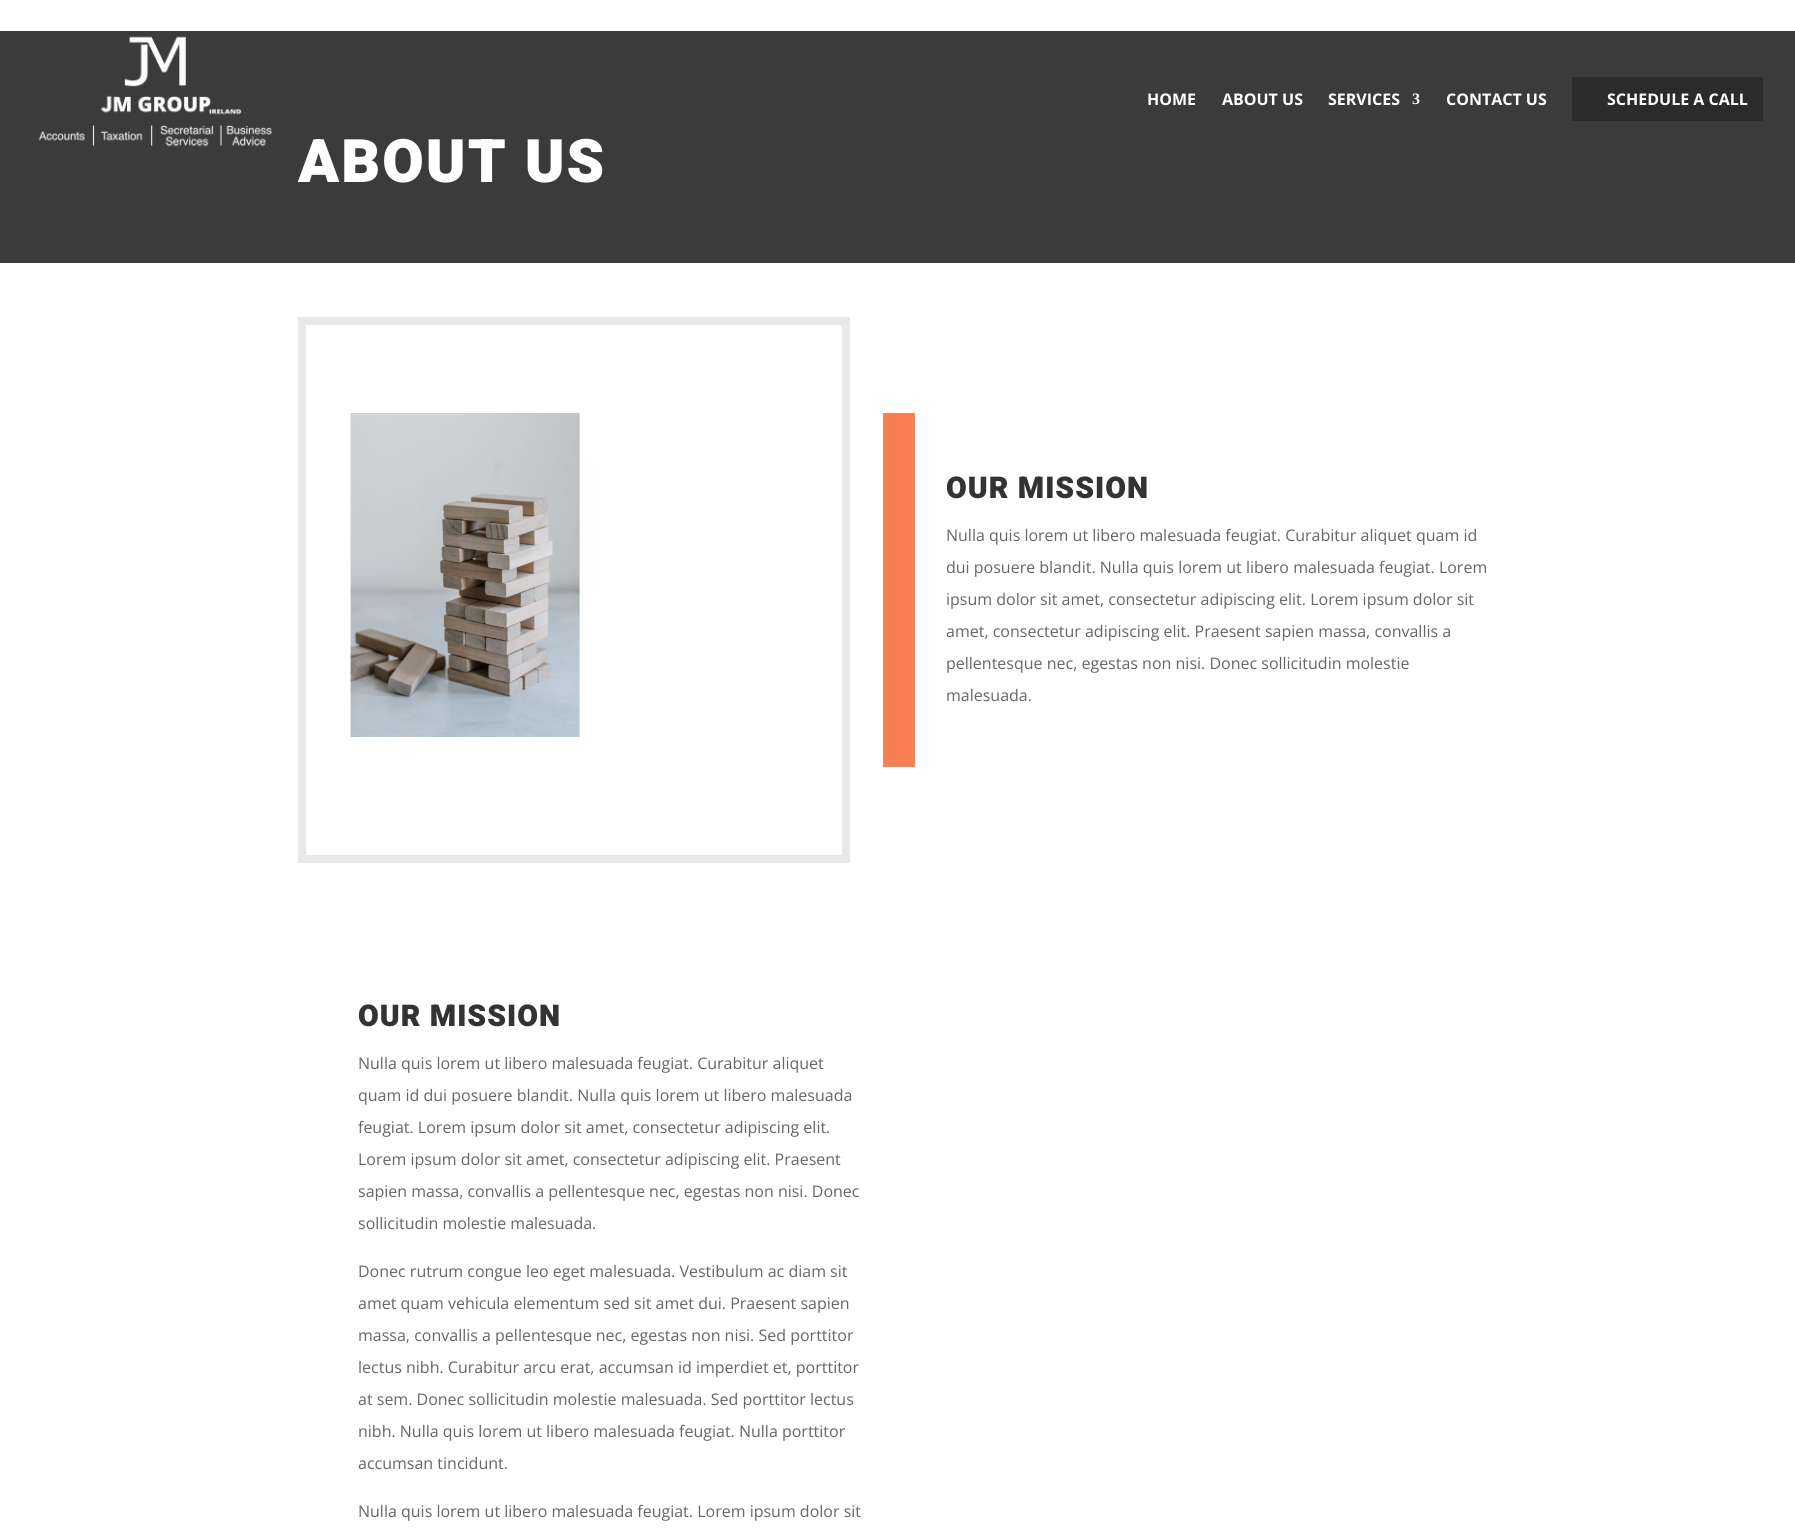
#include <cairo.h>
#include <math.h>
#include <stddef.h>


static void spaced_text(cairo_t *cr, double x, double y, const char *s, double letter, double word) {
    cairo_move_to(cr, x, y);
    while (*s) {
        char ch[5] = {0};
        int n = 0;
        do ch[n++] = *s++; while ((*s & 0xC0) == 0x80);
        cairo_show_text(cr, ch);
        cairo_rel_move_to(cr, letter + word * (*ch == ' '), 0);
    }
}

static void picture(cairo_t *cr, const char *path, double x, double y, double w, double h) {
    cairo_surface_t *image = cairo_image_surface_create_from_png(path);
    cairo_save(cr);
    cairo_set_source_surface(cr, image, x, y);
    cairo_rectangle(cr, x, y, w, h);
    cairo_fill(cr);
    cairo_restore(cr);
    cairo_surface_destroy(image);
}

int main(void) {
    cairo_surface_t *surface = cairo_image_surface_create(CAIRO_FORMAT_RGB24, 1795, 1529);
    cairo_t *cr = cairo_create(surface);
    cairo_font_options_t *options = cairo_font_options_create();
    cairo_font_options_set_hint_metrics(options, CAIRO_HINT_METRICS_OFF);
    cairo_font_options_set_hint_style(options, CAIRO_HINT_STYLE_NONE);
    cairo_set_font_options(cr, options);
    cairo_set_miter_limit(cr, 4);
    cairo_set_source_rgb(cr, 1, 1, 1);
    cairo_paint(cr);
    cairo_set_source_rgb(cr, 0.231, 0.231, 0.231);
    cairo_rectangle(cr, 0, 31, 1795, 232);
    cairo_fill(cr);
    picture(cr, "img1.png", 38, 36, 235, 111);
    cairo_select_font_face(cr, "Open Sans", CAIRO_FONT_SLANT_NORMAL, CAIRO_FONT_WEIGHT_BOLD);
    cairo_set_font_size(cr, 16);
    cairo_set_source_rgb(cr, 1, 1, 1);
    cairo_move_to(cr, 1147, 105);
    cairo_show_text(cr, "HOME");
    cairo_move_to(cr, 1222, 105);
    cairo_show_text(cr, "ABOUT US");
    cairo_move_to(cr, 1328, 105);
    cairo_show_text(cr, "SERVICES");
    cairo_select_font_face(cr, "Liberation Serif", CAIRO_FONT_SLANT_NORMAL, CAIRO_FONT_WEIGHT_BOLD);
    cairo_move_to(cr, 1412, 104);
    cairo_show_text(cr, "3");
    cairo_select_font_face(cr, "Open Sans", CAIRO_FONT_SLANT_NORMAL, CAIRO_FONT_WEIGHT_BOLD);
    cairo_move_to(cr, 1446, 105);
    cairo_show_text(cr, "CONTACT US");
    cairo_set_source_rgb(cr, 0.169, 0.169, 0.169);
    cairo_rectangle(cr, 1572, 77, 191, 44);
    cairo_fill(cr);
    cairo_set_source_rgb(cr, 1, 1, 1);
    cairo_move_to(cr, 1607, 105);
    cairo_show_text(cr, "SCHEDULE A CALL");
    cairo_select_font_face(cr, "Heebo Black", CAIRO_FONT_SLANT_NORMAL, CAIRO_FONT_WEIGHT_NORMAL);
    cairo_set_font_size(cr, 60);
    spaced_text(cr, 298, 182, "ABOUT US", 2, 0);
    cairo_rectangle(cr, 302, 321, 544, 538);
    cairo_set_source_rgb(cr, 0.906, 0.91, 0.91);
    cairo_set_line_width(cr, 8);
    cairo_stroke(cr);
    picture(cr, "img2.png", 350, 413, 230, 324);
    cairo_set_source_rgb(cr, 0.969, 0.494, 0.325);
    cairo_rectangle(cr, 883, 413, 32, 354);
    cairo_fill(cr);
    cairo_set_font_size(cr, 30);
    cairo_set_source_rgb(cr, 0.2, 0.2, 0.2);
    spaced_text(cr, 946, 498, "OUR MISSION", 1, 0);
    cairo_select_font_face(cr, "Open Sans", CAIRO_FONT_SLANT_NORMAL, CAIRO_FONT_WEIGHT_NORMAL);
    cairo_set_font_size(cr, 16);
    cairo_set_source_rgb(cr, 0.4, 0.4, 0.4);
    cairo_move_to(cr, 946, 541);
    cairo_show_text(cr, "Nulla quis lorem ut libero malesuada feugiat. Curabitur aliquet quam id");
    cairo_move_to(cr, 946, 573);
    cairo_show_text(cr, "dui posuere blandit. Nulla quis lorem ut libero malesuada feugiat. Lorem");
    cairo_move_to(cr, 946, 605);
    cairo_show_text(cr, "ipsum dolor sit amet, consectetur adipiscing elit. Lorem ipsum dolor sit");
    cairo_move_to(cr, 946, 637);
    cairo_show_text(cr, "amet, consectetur adipiscing elit. Praesent sapien massa, convallis a");
    cairo_move_to(cr, 946, 669);
    cairo_show_text(cr, "pellentesque nec, egestas non nisi. Donec sollicitudin molestie");
    cairo_move_to(cr, 946, 701);
    cairo_show_text(cr, "malesuada.");
    cairo_select_font_face(cr, "Heebo Black", CAIRO_FONT_SLANT_NORMAL, CAIRO_FONT_WEIGHT_NORMAL);
    cairo_set_font_size(cr, 30);
    cairo_set_source_rgb(cr, 0.2, 0.2, 0.2);
    spaced_text(cr, 358, 1026, "OUR MISSION", 1, 0);
    cairo_select_font_face(cr, "Open Sans", CAIRO_FONT_SLANT_NORMAL, CAIRO_FONT_WEIGHT_NORMAL);
    cairo_set_font_size(cr, 16);
    cairo_set_source_rgb(cr, 0.4, 0.4, 0.4);
    cairo_move_to(cr, 358, 1069);
    cairo_show_text(cr, "Nulla quis lorem ut libero malesuada feugiat. Curabitur aliquet");
    cairo_move_to(cr, 358, 1101);
    cairo_show_text(cr, "quam id dui posuere blandit. Nulla quis lorem ut libero malesuada");
    cairo_move_to(cr, 358, 1133);
    cairo_show_text(cr, "feugiat. Lorem ipsum dolor sit amet, consectetur adipiscing elit.");
    cairo_move_to(cr, 358, 1165);
    cairo_show_text(cr, "Lorem ipsum dolor sit amet, consectetur adipiscing elit. Praesent");
    cairo_move_to(cr, 358, 1197);
    cairo_show_text(cr, "sapien massa, convallis a pellentesque nec, egestas non nisi. Donec");
    cairo_move_to(cr, 358, 1229);
    cairo_show_text(cr, "sollicitudin molestie malesuada.");
    cairo_move_to(cr, 358, 1277);
    cairo_show_text(cr, "Donec rutrum congue leo eget malesuada. Vestibulum ac diam sit");
    cairo_move_to(cr, 358, 1309);
    cairo_show_text(cr, "amet quam vehicula elementum sed sit amet dui. Praesent sapien");
    cairo_move_to(cr, 358, 1341);
    cairo_show_text(cr, "massa, convallis a pellentesque nec, egestas non nisi. Sed porttitor");
    cairo_move_to(cr, 358, 1373);
    cairo_show_text(cr, "lectus nibh. Curabitur arcu erat, accumsan id imperdiet et, porttitor");
    cairo_move_to(cr, 358, 1405);
    cairo_show_text(cr, "at sem. Donec sollicitudin molestie malesuada. Sed porttitor lectus");
    cairo_move_to(cr, 358, 1437);
    cairo_show_text(cr, "nibh. Nulla quis lorem ut libero malesuada feugiat. Nulla porttitor");
    cairo_move_to(cr, 358, 1469);
    cairo_show_text(cr, "accumsan tincidunt.");
    cairo_move_to(cr, 358, 1517);
    cairo_show_text(cr, "Nulla quis lorem ut libero malesuada feugiat. Lorem ipsum dolor sit");
    cairo_surface_write_to_png(surface, "page.png");
    cairo_font_options_destroy(options);
    cairo_destroy(cr);
    cairo_surface_destroy(surface);
    return 0;
}
